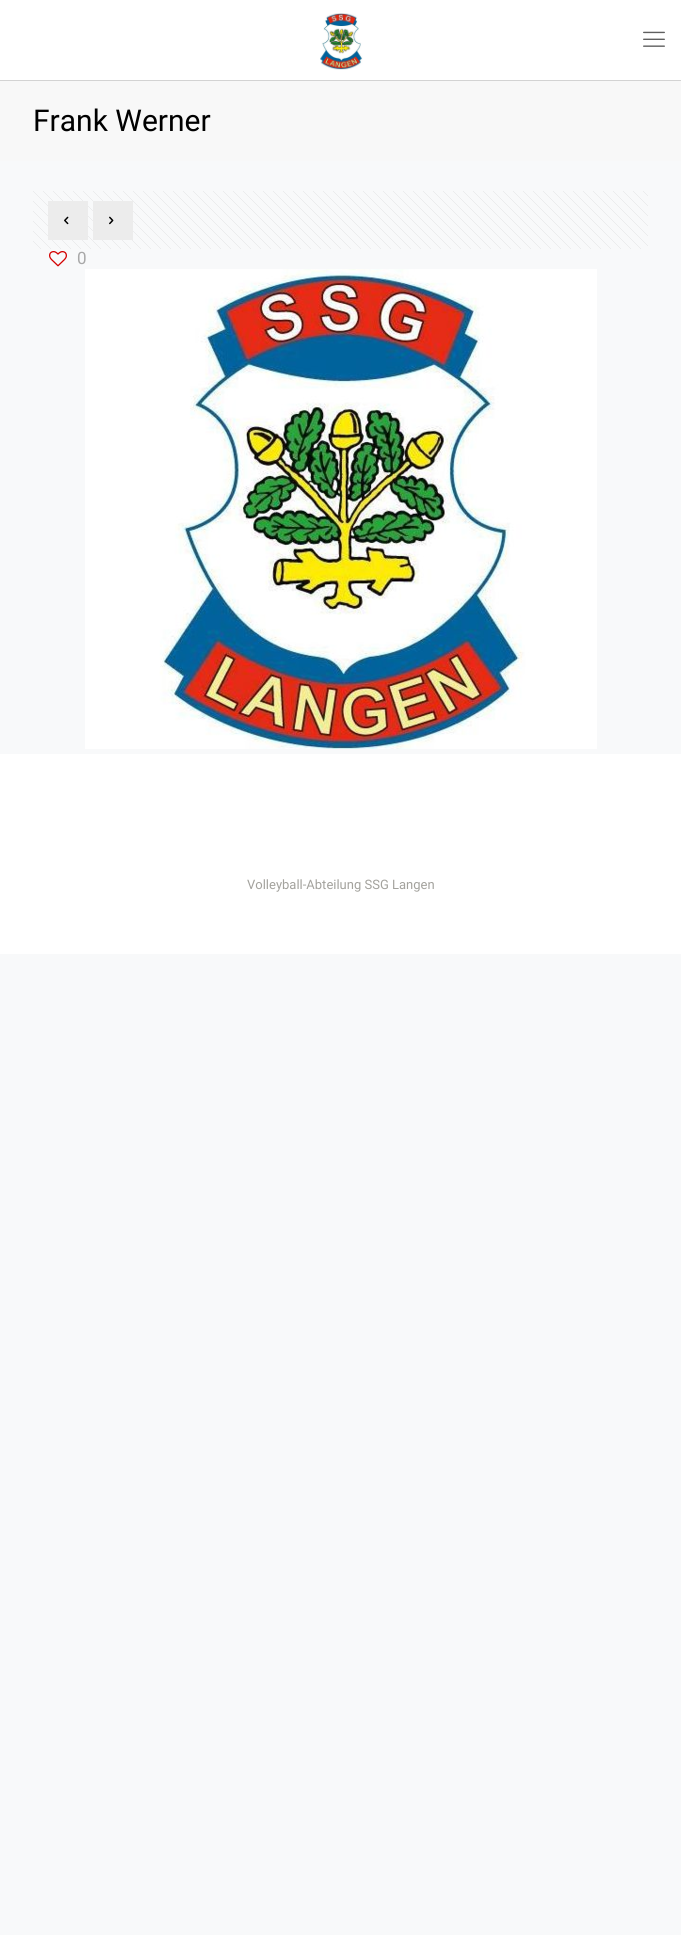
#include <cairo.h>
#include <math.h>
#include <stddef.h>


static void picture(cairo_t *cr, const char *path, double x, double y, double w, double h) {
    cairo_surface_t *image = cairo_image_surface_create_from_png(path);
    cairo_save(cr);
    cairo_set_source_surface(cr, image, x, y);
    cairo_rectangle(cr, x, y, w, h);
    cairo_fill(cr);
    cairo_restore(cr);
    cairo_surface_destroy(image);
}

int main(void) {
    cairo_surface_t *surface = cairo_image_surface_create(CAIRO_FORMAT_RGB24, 681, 1935);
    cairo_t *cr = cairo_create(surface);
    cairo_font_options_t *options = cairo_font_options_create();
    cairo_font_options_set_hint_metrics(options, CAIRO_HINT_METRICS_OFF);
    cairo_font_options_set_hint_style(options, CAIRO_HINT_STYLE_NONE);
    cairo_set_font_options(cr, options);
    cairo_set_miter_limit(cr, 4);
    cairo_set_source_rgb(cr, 0.969, 0.976, 0.98);
    cairo_paint(cr);
    cairo_set_source_rgb(cr, 1, 1, 1);
    cairo_rectangle(cr, 0, 0, 681, 80);
    cairo_fill(cr);
    cairo_set_source_rgb(cr, 0.827, 0.827, 0.827);
    cairo_rectangle(cr, 0, 80, 681, 1);
    cairo_fill(cr);
    picture(cr, "img1.png", 320, 13, 43, 57);
    picture(cr, "img2.png", 643, 31, 22, 16);
    cairo_set_source_rgb(cr, 0.969, 0.969, 0.969);
    cairo_rectangle(cr, 0, 81, 681, 80);
    cairo_fill(cr);
    cairo_select_font_face(cr, "Roboto", CAIRO_FONT_SLANT_NORMAL, CAIRO_FONT_WEIGHT_NORMAL);
    cairo_set_font_size(cr, 30);
    cairo_set_source_rgb(cr, 0, 0, 0);
    cairo_move_to(cr, 33, 131);
    cairo_show_text(cr, "Frank Werner");
    picture(cr, "img3.png", 33, 191, 615, 58);
    cairo_set_source_rgb(cr, 0.925, 0.925, 0.925);
    cairo_rectangle(cr, 48, 201, 40, 39);
    cairo_fill(cr);
    picture(cr, "img4.png", 64, 216, 5, 9);
    cairo_rectangle(cr, 93, 201, 40, 39);
    cairo_fill(cr);
    picture(cr, "img5.png", 109, 216, 5, 9);
    picture(cr, "img6.png", 49, 251, 18, 16);
    cairo_set_font_size(cr, 17);
    cairo_set_source_rgb(cr, 0.659, 0.659, 0.659);
    cairo_move_to(cr, 77, 264);
    cairo_show_text(cr, "0");
    picture(cr, "img7.png", 85, 269, 512, 480);
    cairo_set_source_rgb(cr, 1, 1, 1);
    cairo_rectangle(cr, 0, 754, 681, 200);
    cairo_fill(cr);
    cairo_set_font_size(cr, 13);
    cairo_set_source_rgb(cr, 0.639, 0.635, 0.616);
    cairo_move_to(cr, 247, 889);
    cairo_show_text(cr, "Volleyball-Abteilung SSG Langen");
    cairo_surface_write_to_png(surface, "page.png");
    cairo_font_options_destroy(options);
    cairo_destroy(cr);
    cairo_surface_destroy(surface);
    return 0;
}
